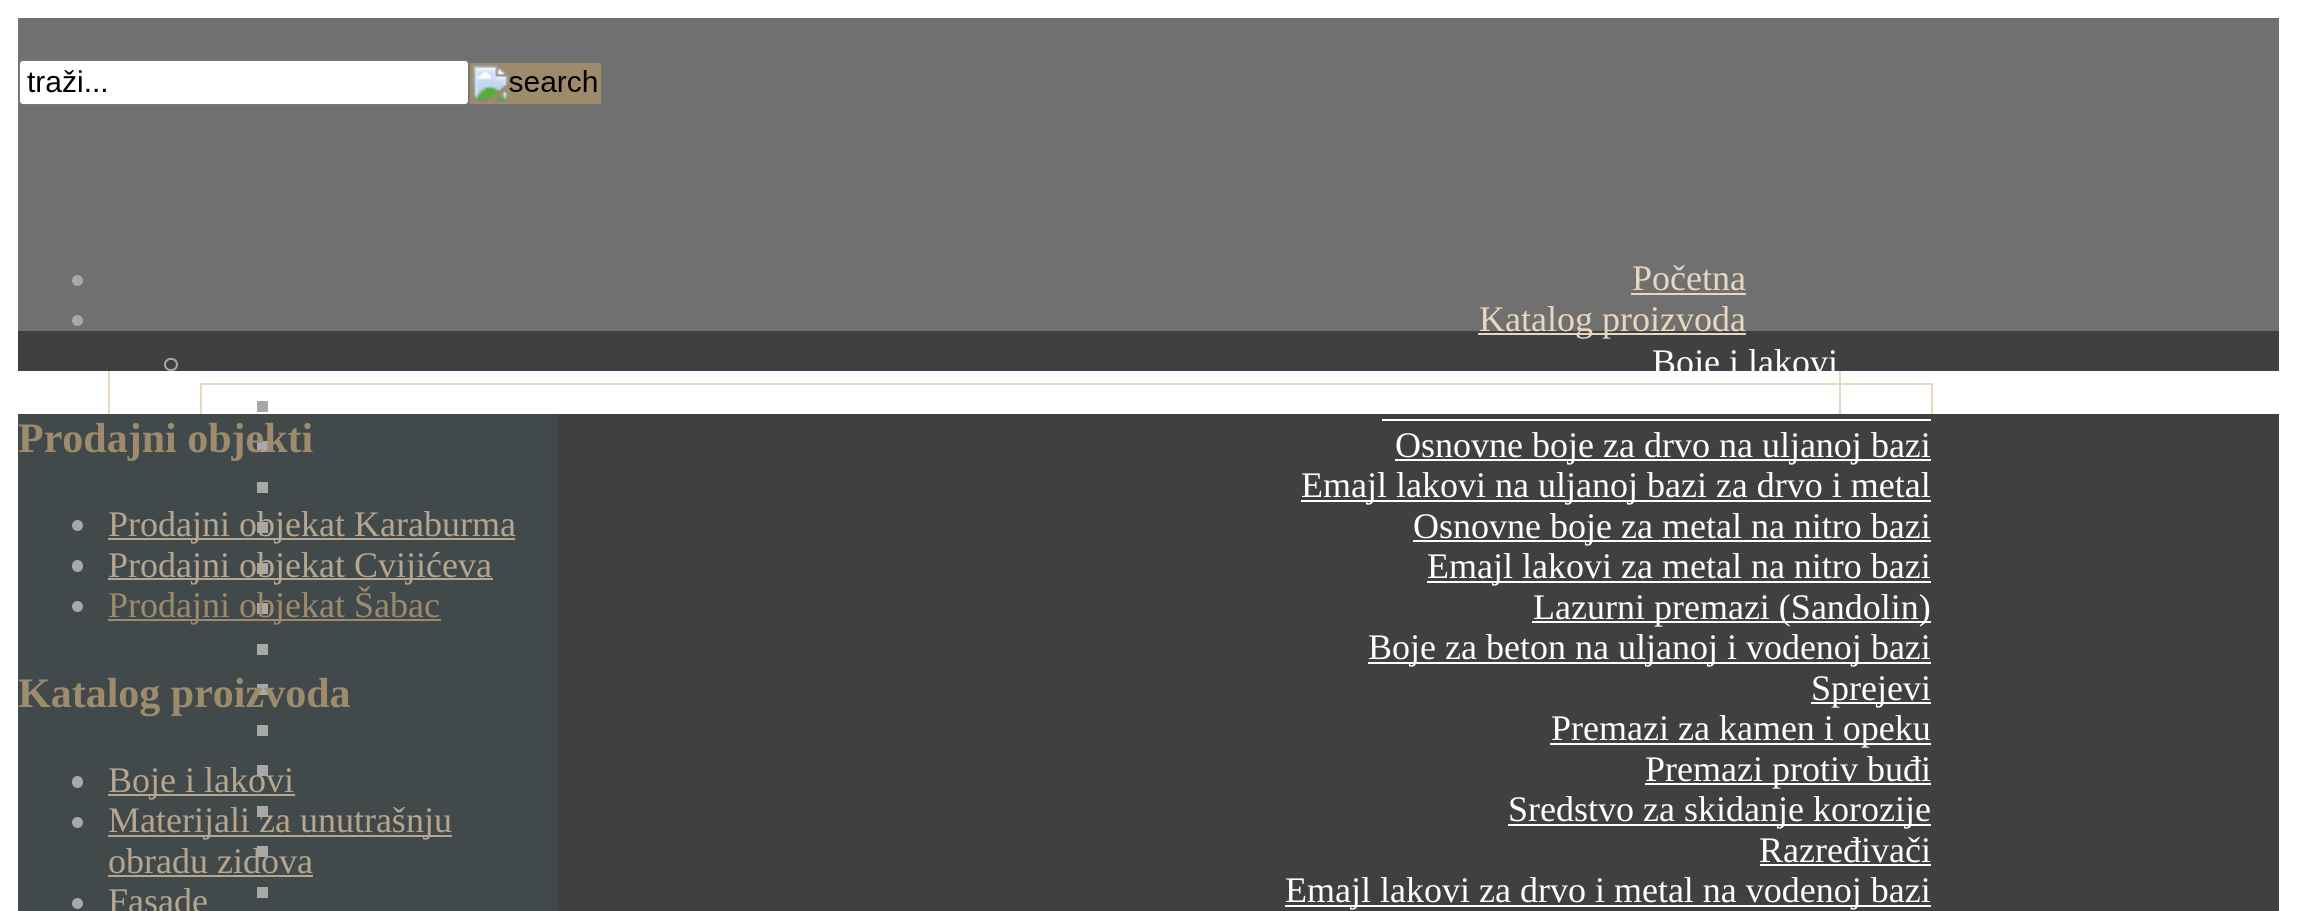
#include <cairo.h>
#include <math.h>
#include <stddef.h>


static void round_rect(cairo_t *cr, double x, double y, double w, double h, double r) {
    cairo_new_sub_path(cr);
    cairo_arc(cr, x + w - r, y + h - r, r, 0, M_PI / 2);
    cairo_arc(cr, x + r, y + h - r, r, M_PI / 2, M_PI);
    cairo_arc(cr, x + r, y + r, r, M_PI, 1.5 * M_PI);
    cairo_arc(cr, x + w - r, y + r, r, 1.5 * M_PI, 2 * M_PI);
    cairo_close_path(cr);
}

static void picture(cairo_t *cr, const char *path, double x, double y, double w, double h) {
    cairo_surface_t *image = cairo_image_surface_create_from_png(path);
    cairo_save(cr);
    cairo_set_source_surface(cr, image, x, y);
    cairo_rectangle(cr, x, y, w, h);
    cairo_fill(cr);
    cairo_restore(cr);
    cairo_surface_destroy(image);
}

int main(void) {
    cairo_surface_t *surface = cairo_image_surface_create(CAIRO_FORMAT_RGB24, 2297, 911);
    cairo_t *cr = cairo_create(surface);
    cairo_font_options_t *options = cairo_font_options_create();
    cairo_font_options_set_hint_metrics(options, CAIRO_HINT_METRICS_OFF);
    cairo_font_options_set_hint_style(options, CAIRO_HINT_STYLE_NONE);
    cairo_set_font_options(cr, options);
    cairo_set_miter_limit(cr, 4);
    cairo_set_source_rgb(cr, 1, 1, 1);
    cairo_paint(cr);
    cairo_set_source_rgb(cr, 0.439, 0.439, 0.439);
    cairo_rectangle(cr, 18, 18, 2261, 313);
    cairo_fill(cr);
    cairo_set_source_rgb(cr, 1, 1, 1);
    round_rect(cr, 19, 60, 450, 45, 4);
    cairo_fill_preserve(cr);
    cairo_set_source_rgb(cr, 0.463, 0.463, 0.463);
    cairo_stroke(cr);
    cairo_select_font_face(cr, "Liberation Sans", CAIRO_FONT_SLANT_NORMAL, CAIRO_FONT_WEIGHT_NORMAL);
    cairo_set_font_size(cr, 30);
    cairo_set_source_rgb(cr, 0, 0, 0);
    cairo_move_to(cr, 27, 92);
    cairo_show_text(cr, "traži...");
    cairo_set_source_rgb(cr, 0.62, 0.545, 0.424);
    cairo_rectangle(cr, 470, 63, 131, 41);
    cairo_fill(cr);
    picture(cr, "img1.png", 472, 65, 125, 36);
    cairo_set_source_rgb(cr, 0.659, 0.659, 0.659);
    cairo_arc(cr, 77.5, 280.5, 5.5, 0, 2 * M_PI);
    cairo_fill(cr);
    cairo_select_font_face(cr, "Liberation Serif", CAIRO_FONT_SLANT_NORMAL, CAIRO_FONT_WEIGHT_NORMAL);
    cairo_set_font_size(cr, 36);
    cairo_set_source_rgb(cr, 0.91, 0.843, 0.757);
    cairo_move_to(cr, 1632, 290);
    cairo_show_text(cr, "Početna");
    cairo_rectangle(cr, 1631, 293, 115, 2);
    cairo_fill(cr);
    cairo_set_source_rgb(cr, 0.659, 0.659, 0.659);
    cairo_arc(cr, 77.5, 320.5, 5.5, 0, 2 * M_PI);
    cairo_fill(cr);
    cairo_rectangle(cr, 109, 341, 1731, 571);
    cairo_set_source_rgb(cr, 0.91, 0.843, 0.757);
    cairo_stroke(cr);
    cairo_set_source_rgb(cr, 0.243, 0.251, 0.255);
    cairo_rectangle(cr, 18, 331, 2261, 40);
    cairo_fill(cr);
    cairo_set_source_rgb(cr, 0.91, 0.843, 0.757);
    cairo_rectangle(cr, 1478, 333, 268, 2);
    cairo_fill(cr);
    cairo_move_to(cr, 1479, 331);
    cairo_show_text(cr, "Katalog proizvoda");
    round_rect(cr, 165, 359, 12, 11, 5.5);
    cairo_set_source_rgb(cr, 0.659, 0.659, 0.659);
    cairo_stroke(cr);
    cairo_set_source_rgb(cr, 1, 1, 1);
    cairo_move_to(cr, 1652, 374);
    cairo_show_text(cr, "Boje i lakovi");
    cairo_rectangle(cr, 201, 384, 1731, 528);
    cairo_set_source_rgb(cr, 0.91, 0.843, 0.757);
    cairo_stroke(cr);
    cairo_set_source_rgb(cr, 0.659, 0.659, 0.659);
    cairo_rectangle(cr, 257, 401, 11, 11);
    cairo_fill(cr);
    cairo_set_source_rgb(cr, 0.243, 0.251, 0.255);
    cairo_rectangle(cr, 558, 414, 1721, 497);
    cairo_fill(cr);
    cairo_set_source_rgb(cr, 1, 1, 1);
    cairo_rectangle(cr, 1382, 419, 549, 2);
    cairo_fill(cr);
    cairo_set_source_rgb(cr, 0.255, 0.286, 0.294);
    cairo_rectangle(cr, 18, 414, 540, 497);
    cairo_fill(cr);
    cairo_set_source_rgb(cr, 0.659, 0.659, 0.659);
    cairo_rectangle(cr, 257, 441, 11, 11);
    cairo_fill(cr);
    cairo_set_source_rgb(cr, 1, 1, 1);
    cairo_rectangle(cr, 1395, 459, 536, 2);
    cairo_fill(cr);
    cairo_move_to(cr, 1395, 457);
    cairo_show_text(cr, "Osnovne boje za drvo na uljanoj bazi");
    cairo_set_source_rgb(cr, 0.659, 0.659, 0.659);
    cairo_rectangle(cr, 257, 482, 11, 11);
    cairo_fill(cr);
    cairo_set_source_rgb(cr, 1, 1, 1);
    cairo_rectangle(cr, 1301, 500, 630, 2);
    cairo_fill(cr);
    cairo_move_to(cr, 1301, 497);
    cairo_show_text(cr, "Emajl lakovi na uljanoj bazi za drvo i metal");
    cairo_set_source_rgb(cr, 0.659, 0.659, 0.659);
    cairo_rectangle(cr, 257, 522, 11, 11);
    cairo_fill(cr);
    cairo_set_source_rgb(cr, 1, 1, 1);
    cairo_rectangle(cr, 1413, 540, 518, 2);
    cairo_fill(cr);
    cairo_move_to(cr, 1413, 538);
    cairo_show_text(cr, "Osnovne boje za metal na nitro bazi");
    cairo_set_source_rgb(cr, 0.659, 0.659, 0.659);
    cairo_rectangle(cr, 257, 563, 11, 11);
    cairo_fill(cr);
    cairo_set_source_rgb(cr, 1, 1, 1);
    cairo_rectangle(cr, 1427, 581, 504, 2);
    cairo_fill(cr);
    cairo_move_to(cr, 1427, 578);
    cairo_show_text(cr, "Emajl lakovi za metal na nitro bazi");
    cairo_set_source_rgb(cr, 0.659, 0.659, 0.659);
    cairo_rectangle(cr, 257, 603, 11, 11);
    cairo_fill(cr);
    cairo_set_source_rgb(cr, 1, 1, 1);
    cairo_rectangle(cr, 1532, 621, 399, 2);
    cairo_fill(cr);
    cairo_move_to(cr, 1533, 619);
    cairo_show_text(cr, "Lazurni premazi (Sandolin)");
    cairo_set_source_rgb(cr, 0.659, 0.659, 0.659);
    cairo_rectangle(cr, 257, 644, 11, 11);
    cairo_fill(cr);
    cairo_set_source_rgb(cr, 1, 1, 1);
    cairo_rectangle(cr, 1368, 662, 563, 2);
    cairo_fill(cr);
    cairo_move_to(cr, 1368, 659);
    cairo_show_text(cr, "Boje za beton na uljanoj i vodenoj bazi");
    cairo_set_source_rgb(cr, 0.659, 0.659, 0.659);
    cairo_rectangle(cr, 257, 684, 11, 11);
    cairo_fill(cr);
    cairo_set_source_rgb(cr, 1, 1, 1);
    cairo_rectangle(cr, 1811, 702, 120, 2);
    cairo_fill(cr);
    cairo_move_to(cr, 1811, 700);
    cairo_show_text(cr, "Sprejevi");
    cairo_set_source_rgb(cr, 0.659, 0.659, 0.659);
    cairo_rectangle(cr, 257, 725, 11, 11);
    cairo_fill(cr);
    cairo_set_source_rgb(cr, 1, 1, 1);
    cairo_rectangle(cr, 1550, 743, 381, 2);
    cairo_fill(cr);
    cairo_move_to(cr, 1551, 740);
    cairo_show_text(cr, "Premazi za kamen i opeku");
    cairo_set_source_rgb(cr, 0.659, 0.659, 0.659);
    cairo_rectangle(cr, 257, 765, 11, 11);
    cairo_fill(cr);
    cairo_set_source_rgb(cr, 1, 1, 1);
    cairo_rectangle(cr, 1645, 783, 286, 2);
    cairo_fill(cr);
    cairo_move_to(cr, 1645, 781);
    cairo_show_text(cr, "Premazi protiv buđi");
    cairo_set_source_rgb(cr, 0.659, 0.659, 0.659);
    cairo_rectangle(cr, 257, 806, 11, 11);
    cairo_fill(cr);
    cairo_set_source_rgb(cr, 1, 1, 1);
    cairo_rectangle(cr, 1508, 824, 423, 2);
    cairo_fill(cr);
    cairo_move_to(cr, 1508, 821);
    cairo_show_text(cr, "Sredstvo za skidanje korozije");
    cairo_set_source_rgb(cr, 0.659, 0.659, 0.659);
    cairo_rectangle(cr, 257, 846, 11, 11);
    cairo_fill(cr);
    cairo_set_source_rgb(cr, 1, 1, 1);
    cairo_move_to(cr, 1759, 862);
    cairo_show_text(cr, "Razređivači");
    cairo_rectangle(cr, 1760, 864, 171, 2);
    cairo_fill(cr);
    cairo_set_source_rgb(cr, 0.659, 0.659, 0.659);
    cairo_rectangle(cr, 257, 887, 11, 11);
    cairo_fill(cr);
    cairo_set_source_rgb(cr, 1, 1, 1);
    cairo_rectangle(cr, 1285, 905, 646, 2);
    cairo_fill(cr);
    cairo_move_to(cr, 1285, 902);
    cairo_show_text(cr, "Emajl lakovi za drvo i metal na vodenoj bazi");
    cairo_select_font_face(cr, "Liberation Serif", CAIRO_FONT_SLANT_NORMAL, CAIRO_FONT_WEIGHT_BOLD);
    cairo_set_font_size(cr, 42);
    cairo_set_source_rgb(cr, 0.62, 0.545, 0.424);
    cairo_move_to(cr, 18, 452);
    cairo_show_text(cr, "Prodajni objekti");
    cairo_set_source_rgb(cr, 0.659, 0.659, 0.659);
    cairo_new_path(cr);
    cairo_arc(cr, 77.5, 525.5, 5.5, 0, 2 * M_PI);
    cairo_fill(cr);
    cairo_set_source_rgb(cr, 0.718, 0.651, 0.561);
    cairo_rectangle(cr, 108, 538, 407, 2);
    cairo_fill(cr);
    cairo_select_font_face(cr, "Liberation Serif", CAIRO_FONT_SLANT_NORMAL, CAIRO_FONT_WEIGHT_NORMAL);
    cairo_set_font_size(cr, 36);
    cairo_move_to(cr, 108, 536);
    cairo_show_text(cr, "Prodajni objekat Karaburma");
    cairo_set_source_rgb(cr, 0.659, 0.659, 0.659);
    round_rect(cr, 72, 560, 11, 12, 5.5);
    cairo_fill(cr);
    cairo_set_source_rgb(cr, 0.718, 0.651, 0.561);
    cairo_rectangle(cr, 108, 578, 385, 2);
    cairo_fill(cr);
    cairo_move_to(cr, 108, 577);
    cairo_show_text(cr, "Prodajni objekat Cvijićeva");
    cairo_set_source_rgb(cr, 0.659, 0.659, 0.659);
    cairo_new_path(cr);
    cairo_arc(cr, 77.5, 606.5, 5.5, 0, 2 * M_PI);
    cairo_fill(cr);
    cairo_set_source_rgb(cr, 0.62, 0.545, 0.424);
    cairo_rectangle(cr, 108, 619, 333, 2);
    cairo_fill(cr);
    cairo_move_to(cr, 108, 617);
    cairo_show_text(cr, "Prodajni objekat Šabac");
    cairo_select_font_face(cr, "Liberation Serif", CAIRO_FONT_SLANT_NORMAL, CAIRO_FONT_WEIGHT_BOLD);
    cairo_set_font_size(cr, 42);
    cairo_move_to(cr, 18, 707);
    cairo_show_text(cr, "Katalog proizvoda");
    cairo_set_source_rgb(cr, 0.659, 0.659, 0.659);
    round_rect(cr, 72, 776, 11, 12, 5.5);
    cairo_fill(cr);
    cairo_set_source_rgb(cr, 0.718, 0.651, 0.561);
    cairo_rectangle(cr, 108, 794, 187, 2);
    cairo_fill(cr);
    cairo_select_font_face(cr, "Liberation Serif", CAIRO_FONT_SLANT_NORMAL, CAIRO_FONT_WEIGHT_NORMAL);
    cairo_set_font_size(cr, 36);
    cairo_move_to(cr, 108, 792);
    cairo_show_text(cr, "Boje i lakovi");
    cairo_set_source_rgb(cr, 0.659, 0.659, 0.659);
    cairo_new_path(cr);
    cairo_arc(cr, 77.5, 822.5, 5.5, 0, 2 * M_PI);
    cairo_fill(cr);
    cairo_set_source_rgb(cr, 0.718, 0.651, 0.561);
    cairo_rectangle(cr, 108, 835, 344, 2);
    cairo_fill(cr);
    cairo_move_to(cr, 108, 832);
    cairo_show_text(cr, "Materijali za unutrašnju");
    cairo_move_to(cr, 108, 873);
    cairo_show_text(cr, "obradu zidova");
    cairo_rectangle(cr, 108, 875, 205, 2);
    cairo_fill(cr);
    cairo_set_source_rgb(cr, 0.659, 0.659, 0.659);
    cairo_arc(cr, 77.5, 903.5, 5.5, 0, 2 * M_PI);
    cairo_fill(cr);
    cairo_set_source_rgb(cr, 0.718, 0.651, 0.561);
    cairo_move_to(cr, 108, 913);
    cairo_show_text(cr, "Fasade");
    cairo_surface_write_to_png(surface, "page.png");
    cairo_font_options_destroy(options);
    cairo_destroy(cr);
    cairo_surface_destroy(surface);
    return 0;
}
